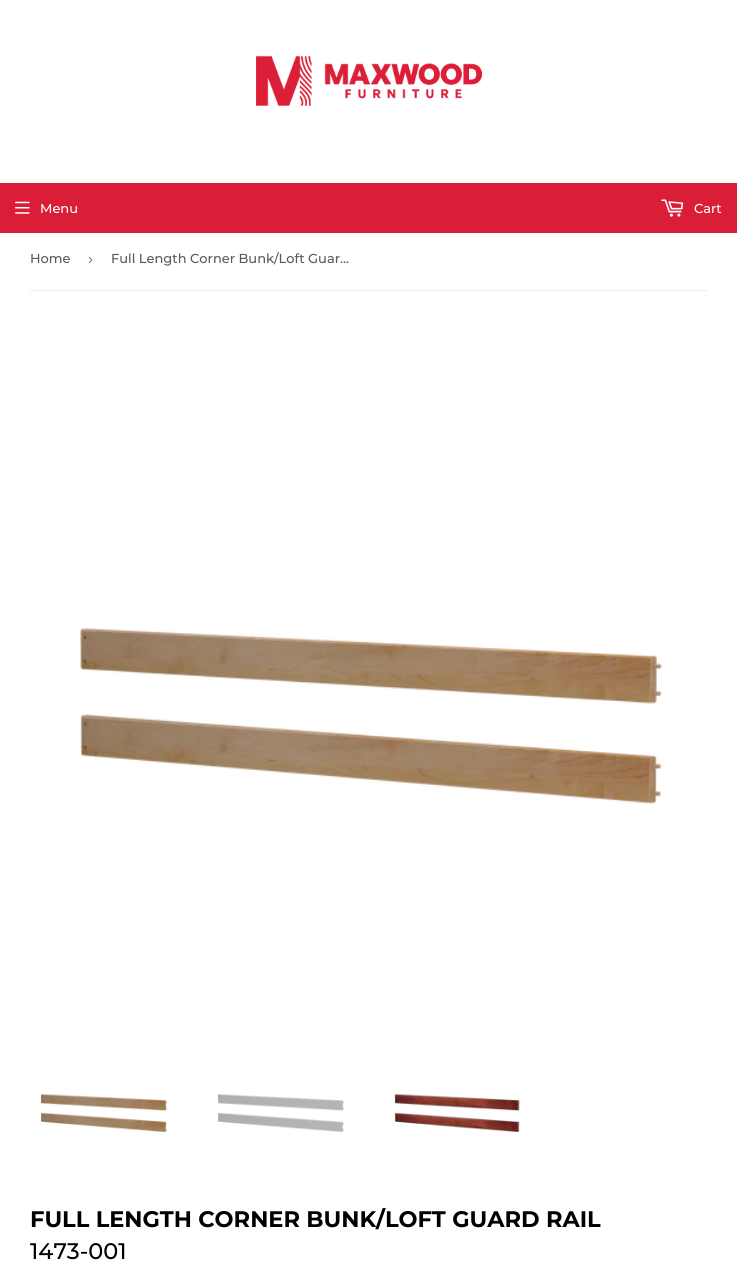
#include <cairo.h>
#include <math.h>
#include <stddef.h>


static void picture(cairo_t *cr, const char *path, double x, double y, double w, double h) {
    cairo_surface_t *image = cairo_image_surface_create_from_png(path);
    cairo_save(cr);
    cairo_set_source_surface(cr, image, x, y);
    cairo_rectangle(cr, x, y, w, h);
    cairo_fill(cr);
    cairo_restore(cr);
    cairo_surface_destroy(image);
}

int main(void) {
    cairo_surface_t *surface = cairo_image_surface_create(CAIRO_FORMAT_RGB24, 737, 1263);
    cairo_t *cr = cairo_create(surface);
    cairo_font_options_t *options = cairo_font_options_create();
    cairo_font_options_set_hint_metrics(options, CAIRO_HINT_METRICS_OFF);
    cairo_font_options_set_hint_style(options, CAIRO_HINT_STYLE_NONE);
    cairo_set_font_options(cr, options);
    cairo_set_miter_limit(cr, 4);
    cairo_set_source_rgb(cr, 1, 1, 1);
    cairo_paint(cr);
    picture(cr, "img1.png", 256, 55, 226, 51);
    cairo_set_source_rgb(cr, 0.855, 0.118, 0.216);
    cairo_rectangle(cr, 0, 183, 737, 50);
    cairo_fill(cr);
    picture(cr, "img2.png", 15, 201, 15, 13);
    cairo_select_font_face(cr, "Montserrat Medium", CAIRO_FONT_SLANT_NORMAL, CAIRO_FONT_WEIGHT_NORMAL);
    cairo_set_font_size(cr, 13);
    cairo_set_source_rgb(cr, 1, 1, 1);
    cairo_move_to(cr, 40, 213);
    cairo_show_text(cr, "Menu");
    picture(cr, "img3.png", 661, 199, 23, 18);
    cairo_move_to(cr, 694, 213);
    cairo_show_text(cr, "Cart");
    cairo_set_source_rgb(cr, 0.925, 0.925, 0.925);
    cairo_rectangle(cr, 30, 290, 677, 1);
    cairo_fill(cr);
    cairo_set_source_rgb(cr, 0.345, 0.345, 0.345);
    cairo_move_to(cr, 30, 263);
    cairo_show_text(cr, "Home");
    cairo_select_font_face(cr, "Liberation Sans", CAIRO_FONT_SLANT_NORMAL, CAIRO_FONT_WEIGHT_NORMAL);
    cairo_set_font_size(cr, 15);
    cairo_set_source_rgb(cr, 0.463, 0.463, 0.463);
    cairo_move_to(cr, 88, 264);
    cairo_show_text(cr, "›");
    cairo_select_font_face(cr, "Montserrat Medium", CAIRO_FONT_SLANT_NORMAL, CAIRO_FONT_WEIGHT_NORMAL);
    cairo_set_font_size(cr, 13);
    cairo_set_source_rgb(cr, 0.345, 0.345, 0.345);
    cairo_move_to(cr, 111, 263);
    cairo_show_text(cr, "Full Length Corner Bunk/Loft Guar…");
    picture(cr, "img4.png", 80, 628, 582, 176);
    picture(cr, "img5.png", 40, 1093, 128, 39);
    picture(cr, "img6.png", 217, 1093, 128, 39);
    picture(cr, "img7.png", 394, 1093, 127, 39);
    cairo_select_font_face(cr, "Montserrat", CAIRO_FONT_SLANT_NORMAL, CAIRO_FONT_WEIGHT_BOLD);
    cairo_set_font_size(cr, 22.5);
    cairo_set_source_rgb(cr, 0, 0, 0);
    cairo_move_to(cr, 30, 1227);
    cairo_show_text(cr, "FULL LENGTH CORNER BUNK/LOFT GUARD RAIL");
    cairo_select_font_face(cr, "Montserrat Medium", CAIRO_FONT_SLANT_NORMAL, CAIRO_FONT_WEIGHT_NORMAL);
    cairo_move_to(cr, 30, 1259);
    cairo_show_text(cr, "1473-001");
    cairo_surface_write_to_png(surface, "page.png");
    cairo_font_options_destroy(options);
    cairo_destroy(cr);
    cairo_surface_destroy(surface);
    return 0;
}
